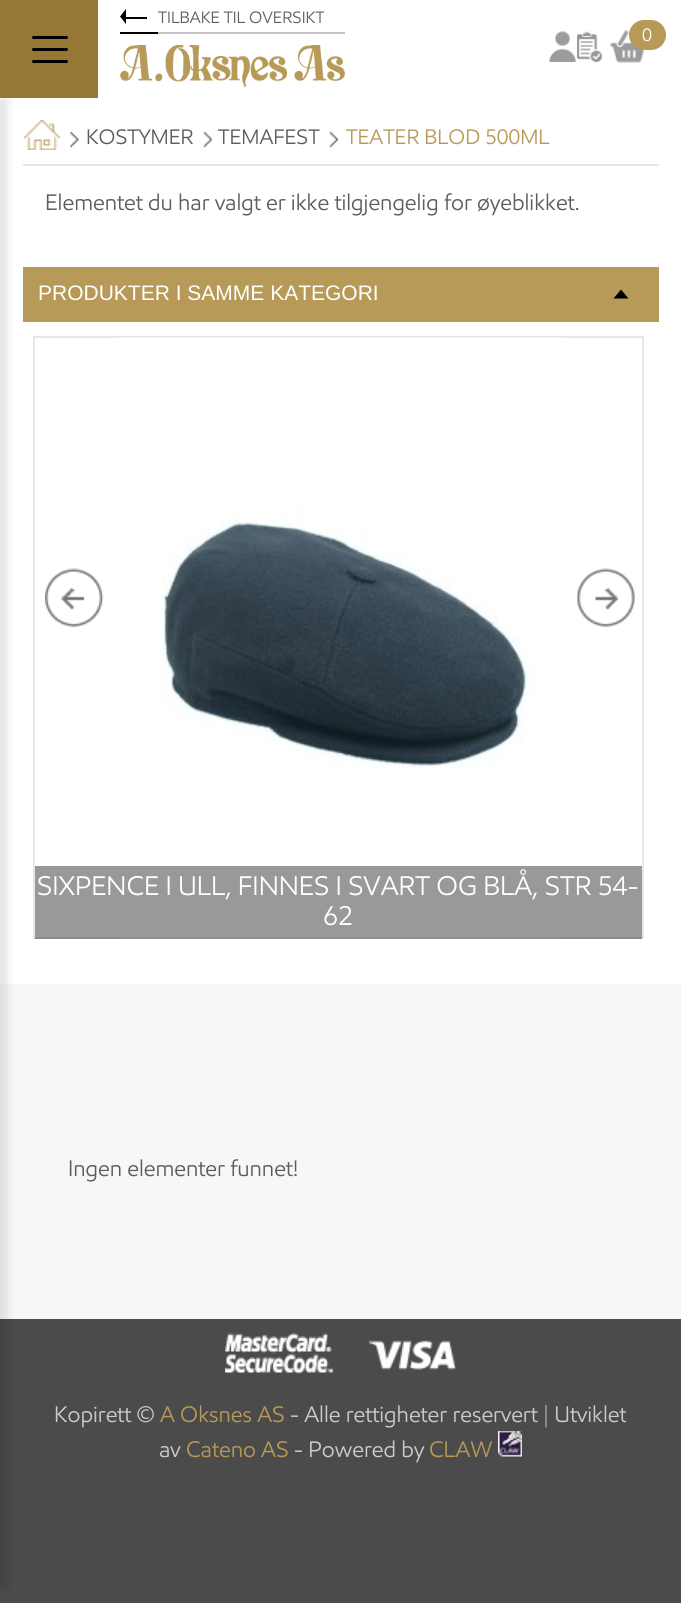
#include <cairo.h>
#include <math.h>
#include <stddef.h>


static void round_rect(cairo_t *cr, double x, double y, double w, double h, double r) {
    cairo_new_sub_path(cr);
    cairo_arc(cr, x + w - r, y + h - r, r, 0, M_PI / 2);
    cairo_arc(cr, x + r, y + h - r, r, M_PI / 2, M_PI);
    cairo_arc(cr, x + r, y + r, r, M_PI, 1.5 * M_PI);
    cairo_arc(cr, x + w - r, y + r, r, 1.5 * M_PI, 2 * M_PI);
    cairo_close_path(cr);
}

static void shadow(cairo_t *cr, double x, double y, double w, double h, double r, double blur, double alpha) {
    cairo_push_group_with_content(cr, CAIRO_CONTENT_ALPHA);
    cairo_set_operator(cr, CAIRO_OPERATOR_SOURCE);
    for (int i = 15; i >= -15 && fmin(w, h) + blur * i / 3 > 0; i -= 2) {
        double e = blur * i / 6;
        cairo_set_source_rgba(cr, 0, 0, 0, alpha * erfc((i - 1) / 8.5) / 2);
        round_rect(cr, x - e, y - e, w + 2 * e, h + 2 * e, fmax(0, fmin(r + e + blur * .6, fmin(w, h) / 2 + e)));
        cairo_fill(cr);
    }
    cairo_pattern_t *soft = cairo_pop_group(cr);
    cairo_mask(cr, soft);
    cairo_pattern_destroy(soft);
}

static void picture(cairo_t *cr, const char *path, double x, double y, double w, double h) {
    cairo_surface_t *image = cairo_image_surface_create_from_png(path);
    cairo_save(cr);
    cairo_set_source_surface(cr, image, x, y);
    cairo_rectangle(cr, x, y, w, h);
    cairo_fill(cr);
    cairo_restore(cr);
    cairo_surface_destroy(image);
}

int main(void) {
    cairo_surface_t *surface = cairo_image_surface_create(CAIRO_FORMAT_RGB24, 681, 1603);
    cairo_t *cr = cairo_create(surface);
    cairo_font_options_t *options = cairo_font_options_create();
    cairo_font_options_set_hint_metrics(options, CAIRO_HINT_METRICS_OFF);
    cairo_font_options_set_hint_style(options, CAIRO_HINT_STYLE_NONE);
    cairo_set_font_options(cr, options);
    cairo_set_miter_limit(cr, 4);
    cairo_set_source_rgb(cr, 0.294, 0.294, 0.294);
    cairo_paint(cr);
    cairo_set_source_rgb(cr, 1, 1, 1);
    cairo_rectangle(cr, 0, 0, 681, 984);
    cairo_fill(cr);
    cairo_set_source_rgb(cr, 0.965, 0.965, 0.965);
    cairo_rectangle(cr, 0, 984, 681, 335);
    cairo_fill(cr);
    cairo_set_source_rgb(cr, 0, 0, 0);
    shadow(cr, -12, 98, 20, 1491, 0, 4, 0.1);
    cairo_set_source_rgb(cr, 0.588, 0.467, 0.204);
    cairo_rectangle(cr, 0, 0, 98, 98);
    cairo_fill(cr);
    cairo_set_source_rgb(cr, 0, 0, 0);
    round_rect(cr, 32, 48, 36, 3, 1.5);
    cairo_fill(cr);
    round_rect(cr, 32, 36, 36, 3, 1.5);
    cairo_fill(cr);
    round_rect(cr, 32, 60, 36, 3, 1.5);
    cairo_fill(cr);
    cairo_set_source_rgb(cr, 0.769, 0.769, 0.769);
    cairo_rectangle(cr, 158, 32, 187, 2);
    cairo_fill(cr);
    cairo_set_source_rgb(cr, 0, 0, 0);
    cairo_new_path(cr);
    cairo_move_to(cr, 126, 9);
    cairo_line_to(cr, 126, 24);
    cairo_line_to(cr, 120, 16.5);
    cairo_close_path(cr);
    cairo_fill(cr);
    cairo_rectangle(cr, 126, 17, 21, 2);
    cairo_fill(cr);
    cairo_select_font_face(cr, "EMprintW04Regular", CAIRO_FONT_SLANT_NORMAL, CAIRO_FONT_WEIGHT_NORMAL);
    cairo_set_font_size(cr, 16.5);
    cairo_set_source_rgb(cr, 0.365, 0.365, 0.365);
    cairo_move_to(cr, 158, 23);
    cairo_show_text(cr, "TILBAKE TIL OVERSIKT");
    cairo_set_source_rgb(cr, 0, 0, 0);
    cairo_rectangle(cr, 120, 32, 38, 2);
    cairo_fill(cr);
    picture(cr, "img1.png", 549, 31, 27, 31);
    picture(cr, "img2.png", 577, 31, 26, 32);
    picture(cr, "img3.png", 610, 30, 34, 33);
    cairo_set_source_rgb(cr, 0.718, 0.6, 0.345);
    round_rect(cr, 629, 20, 37, 30, 15);
    cairo_fill(cr);
    cairo_set_font_size(cr, 18);
    cairo_set_source_rgb(cr, 1, 1, 1);
    cairo_move_to(cr, 642, 41);
    cairo_show_text(cr, "0");
    picture(cr, "img4.png", 120, 45, 225, 42);
    cairo_set_source_rgb(cr, 0.894, 0.894, 0.894);
    cairo_rectangle(cr, 23, 164, 636, 2);
    cairo_fill(cr);
    picture(cr, "img5.png", 24, 120, 36, 30);
    picture(cr, "img6.png", 70, 131, 10, 17);
    cairo_set_font_size(cr, 21);
    cairo_set_source_rgb(cr, 0.365, 0.365, 0.365);
    cairo_move_to(cr, 86, 144);
    cairo_show_text(cr, "KOSTYMER");
    picture(cr, "img7.png", 203, 131, 10, 17);
    cairo_move_to(cr, 218, 144);
    cairo_show_text(cr, "TEMAFEST");
    picture(cr, "img7.png", 329, 131, 10, 17);
    cairo_set_source_rgb(cr, 0.718, 0.6, 0.345);
    cairo_move_to(cr, 346, 144);
    cairo_show_text(cr, "TEATER BLOD 500ML");
    cairo_set_font_size(cr, 22.5);
    cairo_set_source_rgb(cr, 0.365, 0.365, 0.365);
    cairo_move_to(cr, 45, 210);
    cairo_show_text(cr, "Elementet du har valgt er ikke tilgjengelig for øyeblikket.");
    cairo_set_source_rgb(cr, 0.718, 0.6, 0.345);
    cairo_rectangle(cr, 23, 267, 636, 55);
    cairo_fill(cr);
    cairo_select_font_face(cr, "Liberation Sans", CAIRO_FONT_SLANT_NORMAL, CAIRO_FONT_WEIGHT_NORMAL);
    cairo_set_font_size(cr, 21);
    cairo_set_source_rgb(cr, 1, 1, 1);
    cairo_move_to(cr, 38, 300);
    cairo_show_text(cr, "PRODUKTER I SAMME KATEGORI");
    cairo_set_source_rgb(cr, 0, 0, 0);
    cairo_new_path(cr);
    cairo_move_to(cr, 628.5, 298.5);
    cairo_line_to(cr, 613.5, 298.5);
    cairo_line_to(cr, 621, 289.5);
    cairo_close_path(cr);
    cairo_fill(cr);
    cairo_rectangle(cr, 34, 337, 609, 601);
    cairo_set_source_rgb(cr, 0.906, 0.906, 0.906);
    cairo_stroke(cr);
    picture(cr, "img8.png", 45, 568, 59, 59);
    picture(cr, "img9.png", 577, 568, 58, 59);
    picture(cr, "img10.png", 114, 337, 450, 601);
    cairo_set_source_rgba(cr, 0, 0, 0, 0.4);
    cairo_rectangle(cr, 35, 866, 607, 73);
    cairo_fill(cr);
    cairo_select_font_face(cr, "EMprintW04Regular", CAIRO_FONT_SLANT_NORMAL, CAIRO_FONT_WEIGHT_NORMAL);
    cairo_set_font_size(cr, 27);
    cairo_set_source_rgb(cr, 1, 1, 1);
    cairo_move_to(cr, 37, 895);
    cairo_show_text(cr, "SIXPENCE I ULL, FINNES I SVART OG BLÅ, STR 54-");
    cairo_move_to(cr, 323, 925);
    cairo_show_text(cr, "62");
    cairo_set_font_size(cr, 22.5);
    cairo_set_source_rgb(cr, 0.365, 0.365, 0.365);
    cairo_move_to(cr, 68, 1176);
    cairo_show_text(cr, "Ingen elementer funnet!");
    picture(cr, "img11.png", 225, 1333, 108, 42);
    picture(cr, "img12.png", 369, 1340, 87, 30);
    cairo_set_source_rgb(cr, 0.8, 0.8, 0.8);
    cairo_move_to(cr, 54, 1422);
    cairo_show_text(cr, "Kopirett ©");
    cairo_set_source_rgb(cr, 0.718, 0.6, 0.345);
    cairo_move_to(cr, 160, 1422);
    cairo_show_text(cr, "A Oksnes AS");
    cairo_set_source_rgb(cr, 0.8, 0.8, 0.8);
    cairo_move_to(cr, 290, 1422);
    cairo_show_text(cr, "- Alle rettigheter reservert | Utviklet");
    cairo_move_to(cr, 159, 1457);
    cairo_show_text(cr, "av");
    cairo_set_source_rgb(cr, 0.718, 0.6, 0.345);
    cairo_move_to(cr, 186, 1457);
    cairo_show_text(cr, "Cateno AS");
    cairo_set_source_rgb(cr, 0.8, 0.8, 0.8);
    cairo_move_to(cr, 294, 1457);
    cairo_show_text(cr, "- Powered by");
    cairo_set_source_rgb(cr, 0.718, 0.6, 0.345);
    cairo_move_to(cr, 429, 1457);
    cairo_show_text(cr, "CLAW");
    picture(cr, "img13.png", 498, 1431, 24, 26);
    cairo_surface_write_to_png(surface, "page.png");
    cairo_font_options_destroy(options);
    cairo_destroy(cr);
    cairo_surface_destroy(surface);
    return 0;
}
